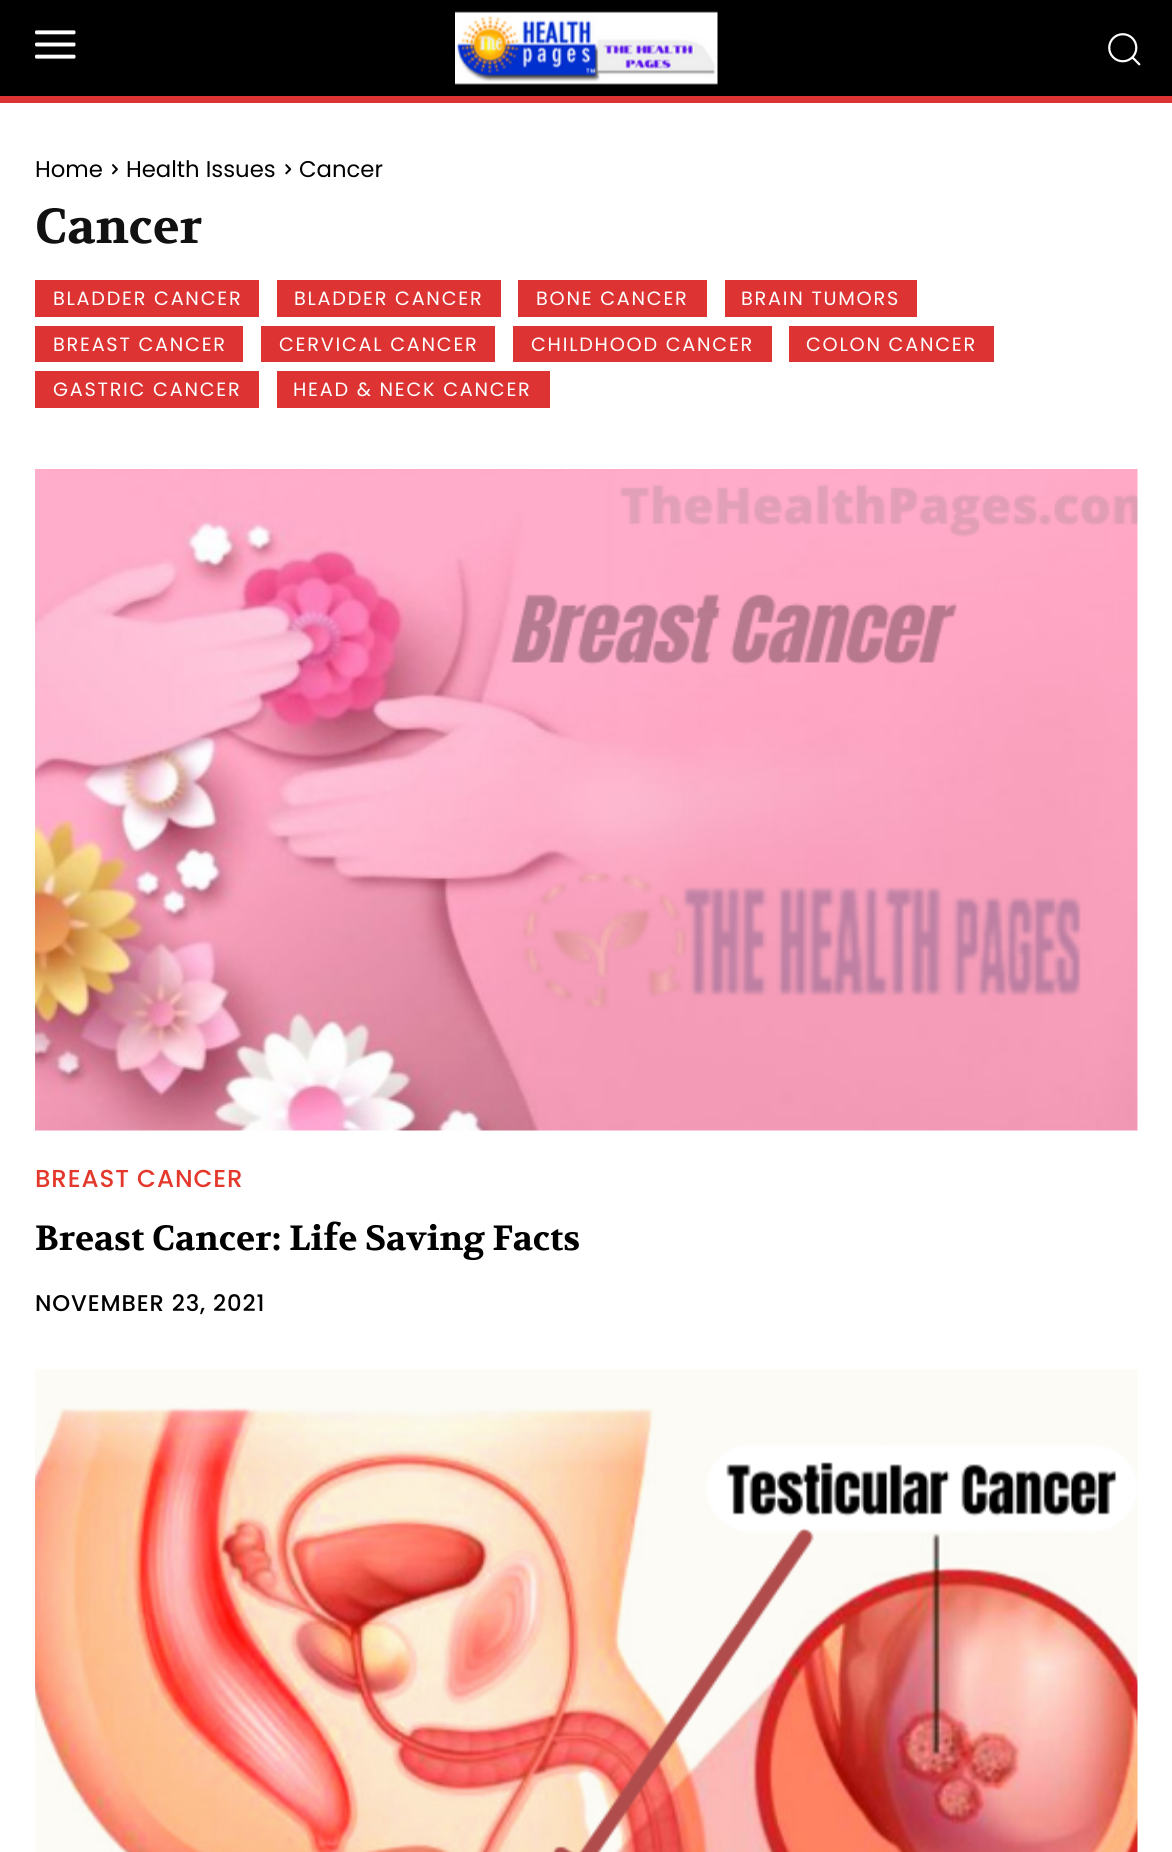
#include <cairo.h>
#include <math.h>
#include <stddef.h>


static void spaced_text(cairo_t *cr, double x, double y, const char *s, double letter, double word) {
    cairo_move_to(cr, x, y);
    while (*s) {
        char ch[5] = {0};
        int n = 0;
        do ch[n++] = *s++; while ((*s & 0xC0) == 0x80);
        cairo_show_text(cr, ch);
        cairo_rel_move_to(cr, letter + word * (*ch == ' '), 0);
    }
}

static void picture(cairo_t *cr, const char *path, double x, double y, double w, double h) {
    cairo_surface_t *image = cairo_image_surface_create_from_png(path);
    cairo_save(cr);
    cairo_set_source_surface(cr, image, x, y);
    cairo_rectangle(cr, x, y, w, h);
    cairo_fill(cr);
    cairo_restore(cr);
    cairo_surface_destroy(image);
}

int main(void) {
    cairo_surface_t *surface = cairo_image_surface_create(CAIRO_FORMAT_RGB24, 1172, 1852);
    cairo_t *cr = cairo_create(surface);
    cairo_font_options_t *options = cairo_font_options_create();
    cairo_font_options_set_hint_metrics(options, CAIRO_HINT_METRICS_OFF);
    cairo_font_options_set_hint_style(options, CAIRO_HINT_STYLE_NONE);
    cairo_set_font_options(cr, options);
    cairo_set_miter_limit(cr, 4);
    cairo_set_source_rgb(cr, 1, 1, 1);
    cairo_paint(cr);
    cairo_set_source_rgb(cr, 0.867, 0.2, 0.2);
    cairo_rectangle(cr, 0, 96, 1172, 7);
    cairo_fill(cr);
    cairo_set_source_rgb(cr, 0, 0, 0);
    cairo_rectangle(cr, 0, 0, 1172, 96);
    cairo_fill(cr);
    picture(cr, "img1.png", 35, 30, 41, 29);
    picture(cr, "img2.png", 455, 11, 263, 74);
    picture(cr, "img3.png", 1108, 33, 33, 33);
    cairo_select_font_face(cr, "Poppins", CAIRO_FONT_SLANT_NORMAL, CAIRO_FONT_WEIGHT_NORMAL);
    cairo_set_font_size(cr, 22.75);
    cairo_move_to(cr, 35, 177);
    cairo_show_text(cr, "Home");
    picture(cr, "img4.png", 112, 164, 6, 11);
    cairo_move_to(cr, 126, 177);
    cairo_show_text(cr, "Health Issues");
    picture(cr, "img5.png", 285, 164, 7, 11);
    cairo_move_to(cr, 299, 177);
    cairo_show_text(cr, "Cancer");
    cairo_select_font_face(cr, "Volkhov", CAIRO_FONT_SLANT_NORMAL, CAIRO_FONT_WEIGHT_BOLD);
    cairo_set_font_size(cr, 49);
    cairo_set_source_rgb(cr, 0.067, 0.067, 0.067);
    cairo_move_to(cr, 35, 243);
    cairo_show_text(cr, "Cancer");
    cairo_set_source_rgb(cr, 0.867, 0.2, 0.2);
    cairo_rectangle(cr, 35, 280, 224, 37);
    cairo_fill(cr);
    cairo_select_font_face(cr, "Poppins", CAIRO_FONT_SLANT_NORMAL, CAIRO_FONT_WEIGHT_NORMAL);
    cairo_set_font_size(cr, 19.25);
    cairo_set_source_rgb(cr, 1, 1, 1);
    spaced_text(cr, 53, 305, "BLADDER CANCER", 1.75, 0);
    cairo_set_source_rgb(cr, 0.867, 0.2, 0.2);
    cairo_rectangle(cr, 277, 280, 224, 37);
    cairo_fill(cr);
    cairo_set_source_rgb(cr, 1, 1, 1);
    spaced_text(cr, 294, 305, "BLADDER CANCER", 1.75, 0);
    cairo_set_source_rgb(cr, 0.867, 0.2, 0.2);
    cairo_rectangle(cr, 518, 280, 189, 37);
    cairo_fill(cr);
    cairo_set_source_rgb(cr, 1, 1, 1);
    spaced_text(cr, 536, 305, "BONE CANCER", 1.75, 0);
    cairo_set_source_rgb(cr, 0.867, 0.2, 0.2);
    cairo_rectangle(cr, 725, 280, 192, 37);
    cairo_fill(cr);
    cairo_set_source_rgb(cr, 1, 1, 1);
    spaced_text(cr, 741, 305, "BRAIN TUMORS", 1.75, 0);
    cairo_set_source_rgb(cr, 0.867, 0.2, 0.2);
    cairo_rectangle(cr, 35, 326, 208, 36);
    cairo_fill(cr);
    cairo_set_source_rgb(cr, 1, 1, 1);
    spaced_text(cr, 53, 351, "BREAST CANCER", 1.75, 0);
    cairo_set_source_rgb(cr, 0.867, 0.2, 0.2);
    cairo_rectangle(cr, 261, 326, 234, 36);
    cairo_fill(cr);
    cairo_set_source_rgb(cr, 1, 1, 1);
    spaced_text(cr, 279, 351, "CERVICAL CANCER", 1.75, 0);
    cairo_set_source_rgb(cr, 0.867, 0.2, 0.2);
    cairo_rectangle(cr, 513, 326, 259, 36);
    cairo_fill(cr);
    cairo_set_source_rgb(cr, 1, 1, 1);
    spaced_text(cr, 531, 351, "CHILDHOOD CANCER", 1.75, 0);
    cairo_set_source_rgb(cr, 0.867, 0.2, 0.2);
    cairo_rectangle(cr, 789, 326, 205, 36);
    cairo_fill(cr);
    cairo_set_source_rgb(cr, 1, 1, 1);
    spaced_text(cr, 806, 351, "COLON CANCER", 1.75, 0);
    cairo_set_source_rgb(cr, 0.867, 0.2, 0.2);
    cairo_rectangle(cr, 35, 371, 224, 37);
    cairo_fill(cr);
    cairo_set_source_rgb(cr, 1, 1, 1);
    spaced_text(cr, 53, 396, "GASTRIC CANCER", 1.75, 0);
    cairo_set_source_rgb(cr, 0.867, 0.2, 0.2);
    cairo_rectangle(cr, 277, 371, 273, 37);
    cairo_fill(cr);
    cairo_set_source_rgb(cr, 1, 1, 1);
    spaced_text(cr, 293, 396, "HEAD & NECK CANCER", 1.75, 0);
    picture(cr, "img6.png", 35, 469, 1103, 662);
    cairo_select_font_face(cr, "Poppins Medium", CAIRO_FONT_SLANT_NORMAL, CAIRO_FONT_WEIGHT_NORMAL);
    cairo_set_font_size(cr, 24.5);
    cairo_set_source_rgb(cr, 0.89, 0.22, 0.169);
    spaced_text(cr, 35, 1187, "BREAST CANCER", 0.9, 0);
    cairo_select_font_face(cr, "Volkhov", CAIRO_FONT_SLANT_NORMAL, CAIRO_FONT_WEIGHT_BOLD);
    cairo_set_font_size(cr, 35);
    cairo_set_source_rgb(cr, 0, 0, 0);
    cairo_move_to(cr, 35, 1250);
    cairo_show_text(cr, "Breast Cancer: Life Saving Facts");
    cairo_select_font_face(cr, "Poppins Medium", CAIRO_FONT_SLANT_NORMAL, CAIRO_FONT_WEIGHT_NORMAL);
    cairo_set_font_size(cr, 22.75);
    spaced_text(cr, 35, 1311, "NOVEMBER 23, 2021", 0.9, 0);
    picture(cr, "img7.png", 35, 1369, 1103, 483);
    cairo_surface_write_to_png(surface, "page.png");
    cairo_font_options_destroy(options);
    cairo_destroy(cr);
    cairo_surface_destroy(surface);
    return 0;
}
